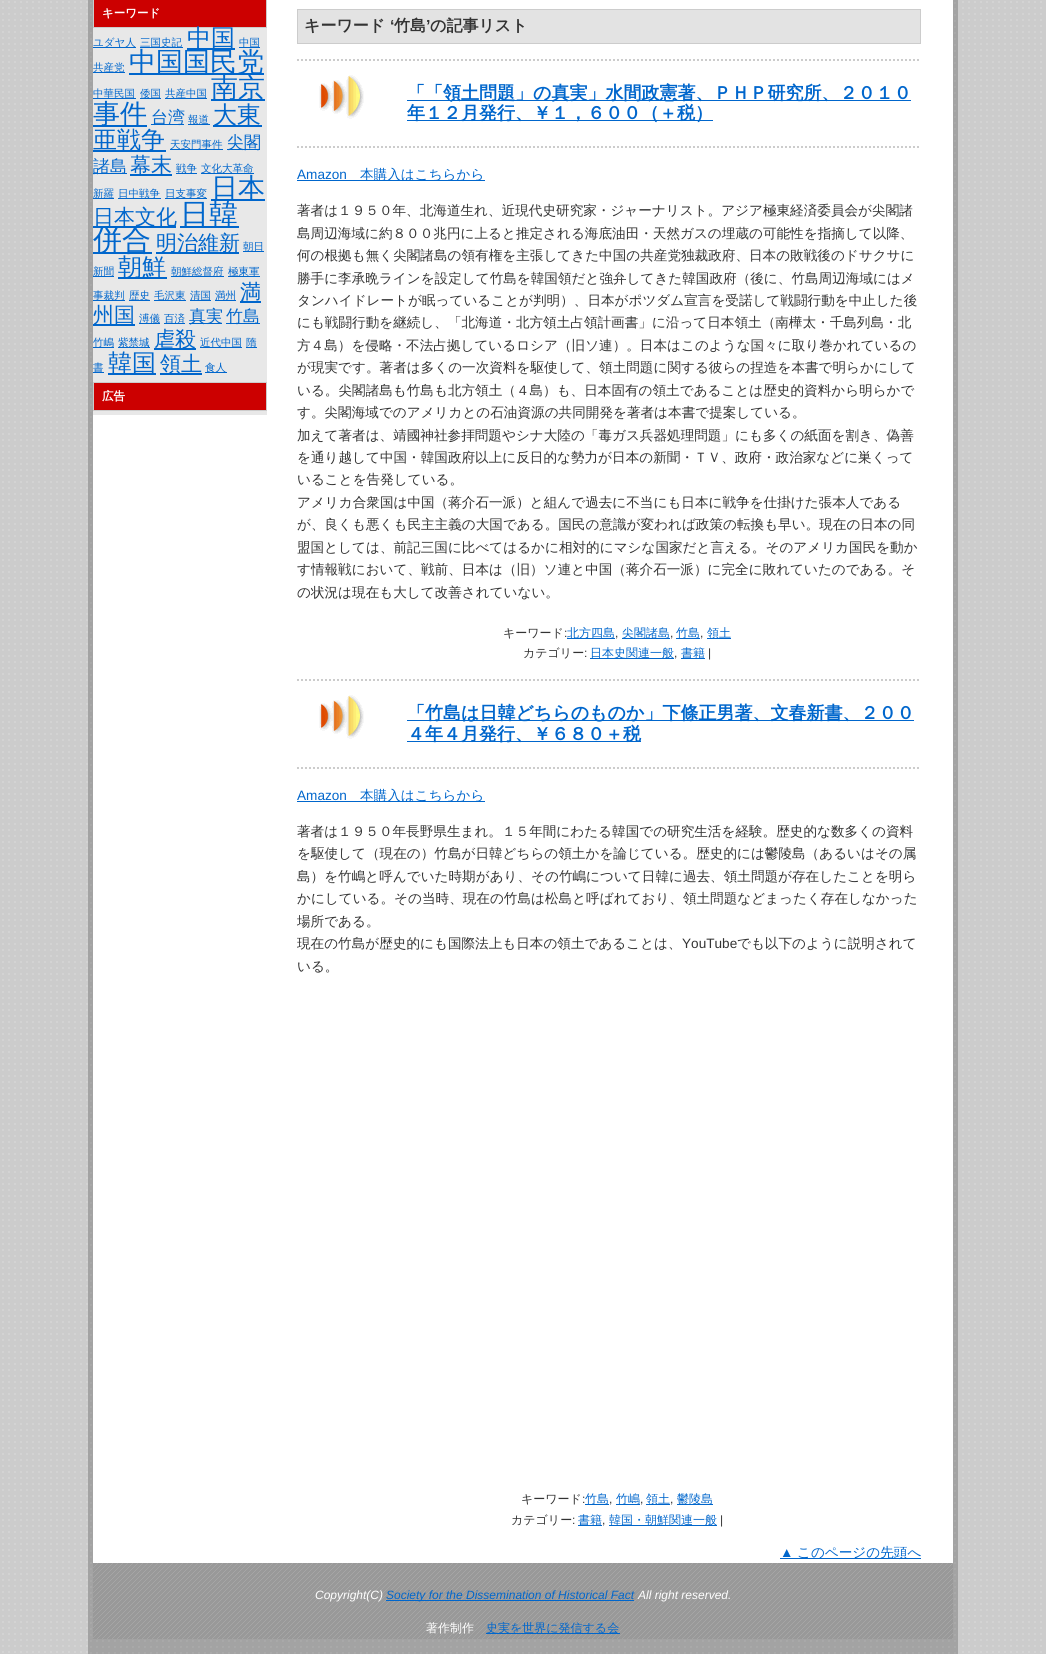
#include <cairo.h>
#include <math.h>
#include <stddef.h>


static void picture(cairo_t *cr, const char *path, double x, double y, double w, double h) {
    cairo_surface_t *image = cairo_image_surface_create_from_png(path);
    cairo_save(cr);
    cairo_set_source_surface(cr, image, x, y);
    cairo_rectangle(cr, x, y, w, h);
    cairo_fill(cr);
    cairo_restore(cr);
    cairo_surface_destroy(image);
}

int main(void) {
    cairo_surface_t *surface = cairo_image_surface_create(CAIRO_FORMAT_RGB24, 1046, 1654);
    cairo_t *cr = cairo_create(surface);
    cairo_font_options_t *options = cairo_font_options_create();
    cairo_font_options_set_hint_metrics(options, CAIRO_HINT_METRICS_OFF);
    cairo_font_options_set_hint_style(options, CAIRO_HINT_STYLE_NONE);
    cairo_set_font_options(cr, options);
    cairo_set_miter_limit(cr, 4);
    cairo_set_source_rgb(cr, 1, 1, 1);
    cairo_paint(cr);
    picture(cr, "img1.png", 0, 0, 1046, 1654);
    picture(cr, "img2.png", 88, 0, 870, 1654);
    cairo_set_source_rgb(cr, 1, 1, 1);
    cairo_rectangle(cr, 93, 0, 860, 1563);
    cairo_fill(cr);
    cairo_set_source_rgb(cr, 0.91, 0.91, 0.91);
    cairo_rectangle(cr, 93, 28, 174, 387);
    cairo_fill(cr);
    cairo_set_source_rgb(cr, 0.8, 0, 0);
    cairo_rectangle(cr, 93.5, -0.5, 173, 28);
    cairo_fill_preserve(cr);
    cairo_set_source_rgb(cr, 0.8, 0.8, 0.8);
    cairo_set_line_width(cr, 1);
    cairo_stroke(cr);
    cairo_select_font_face(cr, "WenQuanYi Zen Hei", CAIRO_FONT_SLANT_NORMAL, CAIRO_FONT_WEIGHT_BOLD);
    cairo_set_font_size(cr, 11.5);
    cairo_set_source_rgb(cr, 1, 1, 1);
    cairo_move_to(cr, 102, 17);
    cairo_show_text(cr, "キーワード");
    cairo_set_source_rgb(cr, 0, 0.4, 0.8);
    cairo_rectangle(cr, 93, 47, 43, 1);
    cairo_fill(cr);
    cairo_select_font_face(cr, "WenQuanYi Zen Hei Medium", CAIRO_FONT_SLANT_NORMAL, CAIRO_FONT_WEIGHT_NORMAL);
    cairo_set_font_size(cr, 10.5);
    cairo_move_to(cr, 93, 46);
    cairo_show_text(cr, "ユダヤ人");
    cairo_rectangle(cr, 140, 47, 43, 1);
    cairo_fill(cr);
    cairo_move_to(cr, 140, 46);
    cairo_show_text(cr, "三国史記");
    cairo_rectangle(cr, 187, 48, 48, 2);
    cairo_fill(cr);
    cairo_set_font_size(cr, 24);
    cairo_move_to(cr, 187, 46);
    cairo_show_text(cr, "中国");
    cairo_rectangle(cr, 239, 47, 21, 1);
    cairo_fill(cr);
    cairo_set_font_size(cr, 10.5);
    cairo_move_to(cr, 239, 46);
    cairo_show_text(cr, "中国");
    cairo_rectangle(cr, 93, 72, 32, 1);
    cairo_fill(cr);
    cairo_move_to(cr, 93, 71);
    cairo_show_text(cr, "共産党");
    cairo_rectangle(cr, 129, 73, 135, 2);
    cairo_fill(cr);
    cairo_set_font_size(cr, 27);
    cairo_move_to(cr, 129, 71);
    cairo_show_text(cr, "中国国民党");
    cairo_rectangle(cr, 93, 98, 43, 1);
    cairo_fill(cr);
    cairo_set_font_size(cr, 10.5);
    cairo_move_to(cr, 93, 97);
    cairo_show_text(cr, "中華民国");
    cairo_rectangle(cr, 140, 98, 21, 1);
    cairo_fill(cr);
    cairo_move_to(cr, 140, 97);
    cairo_show_text(cr, "倭国");
    cairo_rectangle(cr, 165, 98, 42, 1);
    cairo_fill(cr);
    cairo_move_to(cr, 165, 97);
    cairo_show_text(cr, "共産中国");
    cairo_rectangle(cr, 211, 99, 54, 2);
    cairo_fill(cr);
    cairo_set_font_size(cr, 27);
    cairo_move_to(cr, 211, 97);
    cairo_show_text(cr, "南京");
    cairo_rectangle(cr, 93, 125, 54, 2);
    cairo_fill(cr);
    cairo_move_to(cr, 93, 123);
    cairo_show_text(cr, "事件");
    cairo_rectangle(cr, 151, 124, 33, 1);
    cairo_fill(cr);
    cairo_set_font_size(cr, 17);
    cairo_move_to(cr, 151, 123);
    cairo_show_text(cr, "台湾");
    cairo_rectangle(cr, 188, 124, 22, 1);
    cairo_fill(cr);
    cairo_set_font_size(cr, 10.5);
    cairo_move_to(cr, 188, 123);
    cairo_show_text(cr, "報道");
    cairo_rectangle(cr, 213, 125, 49, 2);
    cairo_fill(cr);
    cairo_set_font_size(cr, 24);
    cairo_move_to(cr, 213, 123);
    cairo_show_text(cr, "大東");
    cairo_rectangle(cr, 93, 150, 73, 2);
    cairo_fill(cr);
    cairo_move_to(cr, 93, 148);
    cairo_show_text(cr, "亜戦争");
    cairo_rectangle(cr, 170, 149, 53, 1);
    cairo_fill(cr);
    cairo_set_font_size(cr, 10.5);
    cairo_move_to(cr, 170, 148);
    cairo_show_text(cr, "天安門事件");
    cairo_rectangle(cr, 227, 149, 33, 1);
    cairo_fill(cr);
    cairo_set_font_size(cr, 17);
    cairo_move_to(cr, 227, 148);
    cairo_show_text(cr, "尖閣");
    cairo_rectangle(cr, 93, 173, 34, 1);
    cairo_fill(cr);
    cairo_move_to(cr, 93, 172);
    cairo_show_text(cr, "諸島");
    cairo_rectangle(cr, 130, 174, 42, 2);
    cairo_fill(cr);
    cairo_set_font_size(cr, 21);
    cairo_move_to(cr, 130, 172);
    cairo_show_text(cr, "幕末");
    cairo_rectangle(cr, 176, 173, 21, 1);
    cairo_fill(cr);
    cairo_set_font_size(cr, 10.5);
    cairo_move_to(cr, 176, 172);
    cairo_show_text(cr, "戦争");
    cairo_rectangle(cr, 201, 173, 53, 1);
    cairo_fill(cr);
    cairo_move_to(cr, 201, 172);
    cairo_show_text(cr, "文化大革命");
    cairo_rectangle(cr, 93, 198, 21, 1);
    cairo_fill(cr);
    cairo_move_to(cr, 93, 197);
    cairo_show_text(cr, "新羅");
    cairo_rectangle(cr, 118, 198, 43, 1);
    cairo_fill(cr);
    cairo_move_to(cr, 118, 197);
    cairo_show_text(cr, "日中戦争");
    cairo_rectangle(cr, 165, 198, 42, 1);
    cairo_fill(cr);
    cairo_move_to(cr, 165, 197);
    cairo_show_text(cr, "日支事変");
    cairo_rectangle(cr, 211, 199, 54, 2);
    cairo_fill(cr);
    cairo_set_font_size(cr, 27);
    cairo_move_to(cr, 211, 197);
    cairo_show_text(cr, "日本");
    cairo_rectangle(cr, 93, 226, 83, 2);
    cairo_fill(cr);
    cairo_set_font_size(cr, 21);
    cairo_move_to(cr, 93, 224);
    cairo_show_text(cr, "日本文化");
    cairo_rectangle(cr, 180, 226, 59, 2);
    cairo_fill(cr);
    cairo_set_font_size(cr, 29);
    cairo_move_to(cr, 180, 224);
    cairo_show_text(cr, "日韓");
    cairo_rectangle(cr, 93, 252, 59, 2);
    cairo_fill(cr);
    cairo_move_to(cr, 93, 250);
    cairo_show_text(cr, "併合");
    cairo_rectangle(cr, 156, 252, 83, 2);
    cairo_fill(cr);
    cairo_set_font_size(cr, 21);
    cairo_move_to(cr, 156, 250);
    cairo_show_text(cr, "明治維新");
    cairo_rectangle(cr, 243, 251, 21, 1);
    cairo_fill(cr);
    cairo_set_font_size(cr, 10.5);
    cairo_move_to(cr, 243, 250);
    cairo_show_text(cr, "朝日");
    cairo_rectangle(cr, 93, 276, 21, 1);
    cairo_fill(cr);
    cairo_move_to(cr, 93, 275);
    cairo_show_text(cr, "新聞");
    cairo_rectangle(cr, 118, 277, 49, 2);
    cairo_fill(cr);
    cairo_set_font_size(cr, 24);
    cairo_move_to(cr, 118, 275);
    cairo_show_text(cr, "朝鮮");
    cairo_rectangle(cr, 171, 276, 53, 1);
    cairo_fill(cr);
    cairo_set_font_size(cr, 10.5);
    cairo_move_to(cr, 171, 275);
    cairo_show_text(cr, "朝鮮総督府");
    cairo_rectangle(cr, 228, 276, 32, 1);
    cairo_fill(cr);
    cairo_move_to(cr, 228, 275);
    cairo_show_text(cr, "極東軍");
    cairo_rectangle(cr, 93, 300, 32, 1);
    cairo_fill(cr);
    cairo_move_to(cr, 93, 299);
    cairo_show_text(cr, "事裁判");
    cairo_rectangle(cr, 129, 300, 21, 1);
    cairo_fill(cr);
    cairo_move_to(cr, 129, 299);
    cairo_show_text(cr, "歴史");
    cairo_rectangle(cr, 154, 300, 32, 1);
    cairo_fill(cr);
    cairo_move_to(cr, 154, 299);
    cairo_show_text(cr, "毛沢東");
    cairo_rectangle(cr, 190, 300, 21, 1);
    cairo_fill(cr);
    cairo_move_to(cr, 190, 299);
    cairo_show_text(cr, "清国");
    cairo_rectangle(cr, 215, 300, 21, 1);
    cairo_fill(cr);
    cairo_move_to(cr, 215, 299);
    cairo_show_text(cr, "満州");
    cairo_rectangle(cr, 240, 301, 21, 2);
    cairo_fill(cr);
    cairo_set_font_size(cr, 21);
    cairo_move_to(cr, 240, 299);
    cairo_show_text(cr, "満");
    cairo_rectangle(cr, 93, 324, 42, 2);
    cairo_fill(cr);
    cairo_move_to(cr, 93, 322);
    cairo_show_text(cr, "州国");
    cairo_rectangle(cr, 139, 323, 21, 1);
    cairo_fill(cr);
    cairo_set_font_size(cr, 10.5);
    cairo_move_to(cr, 139, 322);
    cairo_show_text(cr, "溥儀");
    cairo_rectangle(cr, 164, 323, 21, 1);
    cairo_fill(cr);
    cairo_move_to(cr, 164, 322);
    cairo_show_text(cr, "百済");
    cairo_rectangle(cr, 189, 323, 33, 1);
    cairo_fill(cr);
    cairo_set_font_size(cr, 17);
    cairo_move_to(cr, 189, 322);
    cairo_show_text(cr, "真実");
    cairo_rectangle(cr, 226, 323, 34, 1);
    cairo_fill(cr);
    cairo_move_to(cr, 226, 322);
    cairo_show_text(cr, "竹島");
    cairo_rectangle(cr, 93, 347, 21, 1);
    cairo_fill(cr);
    cairo_set_font_size(cr, 10.5);
    cairo_move_to(cr, 93, 346);
    cairo_show_text(cr, "竹嶋");
    cairo_rectangle(cr, 118, 347, 32, 1);
    cairo_fill(cr);
    cairo_move_to(cr, 118, 346);
    cairo_show_text(cr, "紫禁城");
    cairo_rectangle(cr, 154, 348, 42, 2);
    cairo_fill(cr);
    cairo_set_font_size(cr, 21);
    cairo_move_to(cr, 154, 346);
    cairo_show_text(cr, "虐殺");
    cairo_rectangle(cr, 200, 347, 42, 1);
    cairo_fill(cr);
    cairo_set_font_size(cr, 10.5);
    cairo_move_to(cr, 200, 346);
    cairo_show_text(cr, "近代中国");
    cairo_rectangle(cr, 246, 347, 11, 1);
    cairo_fill(cr);
    cairo_move_to(cr, 246, 346);
    cairo_show_text(cr, "隋");
    cairo_rectangle(cr, 93, 372, 11, 1);
    cairo_fill(cr);
    cairo_move_to(cr, 93, 371);
    cairo_show_text(cr, "書");
    cairo_rectangle(cr, 108, 373, 48, 2);
    cairo_fill(cr);
    cairo_set_font_size(cr, 24);
    cairo_move_to(cr, 108, 371);
    cairo_show_text(cr, "韓国");
    cairo_rectangle(cr, 160, 373, 42, 2);
    cairo_fill(cr);
    cairo_set_font_size(cr, 21);
    cairo_move_to(cr, 160, 371);
    cairo_show_text(cr, "領土");
    cairo_rectangle(cr, 205, 372, 22, 1);
    cairo_fill(cr);
    cairo_set_font_size(cr, 10.5);
    cairo_move_to(cr, 205, 371);
    cairo_show_text(cr, "食人");
    cairo_set_source_rgb(cr, 0.8, 0, 0);
    cairo_rectangle(cr, 93.5, 382.5, 173, 28);
    cairo_fill_preserve(cr);
    cairo_set_source_rgb(cr, 0.8, 0.8, 0.8);
    cairo_stroke(cr);
    cairo_select_font_face(cr, "WenQuanYi Zen Hei", CAIRO_FONT_SLANT_NORMAL, CAIRO_FONT_WEIGHT_BOLD);
    cairo_set_font_size(cr, 11.5);
    cairo_set_source_rgb(cr, 1, 1, 1);
    cairo_move_to(cr, 102, 400);
    cairo_show_text(cr, "広告");
    cairo_set_source_rgb(cr, 0.89, 0.89, 0.89);
    cairo_rectangle(cr, 297.5, 9.5, 623, 34);
    cairo_fill_preserve(cr);
    cairo_set_source_rgb(cr, 0.8, 0.8, 0.8);
    cairo_stroke(cr);
    cairo_set_font_size(cr, 16);
    cairo_set_source_rgb(cr, 0.2, 0.2, 0.2);
    cairo_move_to(cr, 304, 31);
    cairo_show_text(cr, "キーワード");
    cairo_select_font_face(cr, "Liberation Sans", CAIRO_FONT_SLANT_NORMAL, CAIRO_FONT_WEIGHT_BOLD);
    cairo_move_to(cr, 390, 31);
    cairo_show_text(cr, "‘");
    cairo_select_font_face(cr, "WenQuanYi Zen Hei", CAIRO_FONT_SLANT_NORMAL, CAIRO_FONT_WEIGHT_BOLD);
    cairo_move_to(cr, 394, 31);
    cairo_show_text(cr, "竹島");
    cairo_select_font_face(cr, "Liberation Sans", CAIRO_FONT_SLANT_NORMAL, CAIRO_FONT_WEIGHT_BOLD);
    cairo_move_to(cr, 426, 31);
    cairo_show_text(cr, "’");
    cairo_select_font_face(cr, "WenQuanYi Zen Hei", CAIRO_FONT_SLANT_NORMAL, CAIRO_FONT_WEIGHT_BOLD);
    cairo_move_to(cr, 430, 31);
    cairo_show_text(cr, "の記事リスト");
    picture(cr, "img3.png", 319, 75, 45, 44);
    cairo_new_path(cr);
    cairo_move_to(cr, 297, 60);
    cairo_line_to(cr, 921, 60);
    cairo_set_source_rgb(cr, 0.8, 0.8, 0.8);
    cairo_set_line_width(cr, 2);
    cairo_set_dash(cr, (double[]){2, 2}, 2, 0);
    cairo_stroke(cr);
    cairo_new_path(cr);
    cairo_move_to(cr, 297, 147);
    cairo_line_to(cr, 921, 147);
    cairo_stroke(cr);
    cairo_set_source_rgb(cr, 0, 0.4, 0.8);
    cairo_rectangle(cr, 407, 100, 504, 1);
    cairo_fill(cr);
    cairo_set_font_size(cr, 18);
    cairo_move_to(cr, 407, 99);
    cairo_show_text(cr, "「「領土問題」の真実」水間政憲著、ＰＨＰ研究所、２０１０");
    cairo_rectangle(cr, 407, 120, 306, 1);
    cairo_fill(cr);
    cairo_move_to(cr, 407, 119);
    cairo_show_text(cr, "年１２月発行、￥１，６００（＋税）");
    cairo_select_font_face(cr, "Liberation Sans", CAIRO_FONT_SLANT_NORMAL, CAIRO_FONT_WEIGHT_NORMAL);
    cairo_set_font_size(cr, 13.6);
    cairo_move_to(cr, 297, 179);
    cairo_show_text(cr, "Amazon");
    cairo_rectangle(cr, 297, 180, 188, 1);
    cairo_fill(cr);
    cairo_select_font_face(cr, "WenQuanYi Zen Hei Medium", CAIRO_FONT_SLANT_NORMAL, CAIRO_FONT_WEIGHT_NORMAL);
    cairo_move_to(cr, 360, 179);
    cairo_show_text(cr, "本購入はこちらから");
    cairo_set_source_rgb(cr, 0.2, 0.2, 0.2);
    cairo_move_to(cr, 297, 215);
    cairo_show_text(cr, "著者は１９５０年、北海道生れ、近現代史研究家・ジャーナリスト。アジア極東経済委員会が尖閣諸");
    cairo_move_to(cr, 297, 238);
    cairo_show_text(cr, "島周辺海域に約８００兆円に上ると推定される海底油田・天然ガスの埋蔵の可能性を指摘して以降、");
    cairo_move_to(cr, 297, 260);
    cairo_show_text(cr, "何の根拠も無く尖閣諸島の領有権を主張してきた中国の共産党独裁政府、日本の敗戦後のドサクサに");
    cairo_move_to(cr, 297, 283);
    cairo_show_text(cr, "勝手に李承晩ラインを設定して竹島を韓国領だと強弁してきた韓国政府（後に、竹島周辺海域にはメ");
    cairo_move_to(cr, 297, 305);
    cairo_show_text(cr, "タンハイドレートが眠っていることが判明）、日本がポツダム宣言を受諾して戦闘行動を中止した後");
    cairo_move_to(cr, 297, 327);
    cairo_show_text(cr, "にも戦闘行動を継続し、「北海道・北方領土占領計画書」に沿って日本領土（南樺太・千島列島・北");
    cairo_move_to(cr, 297, 350);
    cairo_show_text(cr, "方４島）を侵略・不法占拠しているロシア（旧ソ連）。日本はこのような国々に取り巻かれているの");
    cairo_move_to(cr, 297, 372);
    cairo_show_text(cr, "が現実です。著者は多くの一次資料を駆使して、領土問題に関する彼らの捏造を本書で明らかにして");
    cairo_move_to(cr, 297, 395);
    cairo_show_text(cr, "いる。尖閣諸島も竹島も北方領土（４島）も、日本固有の領土であることは歴史的資料から明らかで");
    cairo_move_to(cr, 297, 417);
    cairo_show_text(cr, "す。尖閣海域でのアメリカとの石油資源の共同開発を著者は本書で提案している。");
    cairo_move_to(cr, 297, 440);
    cairo_show_text(cr, "加えて著者は、靖國神社参拝問題やシナ大陸の「毒ガス兵器処理問題」にも多くの紙面を割き、偽善");
    cairo_move_to(cr, 297, 462);
    cairo_show_text(cr, "を通り越して中国・韓国政府以上に反日的な勢力が日本の新聞・ＴＶ、政府・政治家などに巣くって");
    cairo_move_to(cr, 297, 484);
    cairo_show_text(cr, "いることを告発している。");
    cairo_move_to(cr, 297, 507);
    cairo_show_text(cr, "アメリカ合衆国は中国（蒋介石一派）と組んで過去に不当にも日本に戦争を仕掛けた張本人である");
    cairo_move_to(cr, 297, 529);
    cairo_show_text(cr, "が、良くも悪くも民主主義の大国である。国民の意識が変われば政策の転換も早い。現在の日本の同");
    cairo_move_to(cr, 297, 552);
    cairo_show_text(cr, "盟国としては、前記三国に比べてはるかに相対的にマシな国家だと言える。そのアメリカ国民を動か");
    cairo_move_to(cr, 297, 574);
    cairo_show_text(cr, "す情報戦において、戦前、日本は（旧）ソ連と中国（蒋介石一派）に完全に敗れていたのである。そ");
    cairo_move_to(cr, 297, 597);
    cairo_show_text(cr, "の状況は現在も大して改善されていない。");
    cairo_set_font_size(cr, 12);
    cairo_move_to(cr, 503, 637);
    cairo_show_text(cr, "キーワード");
    cairo_select_font_face(cr, "Liberation Sans", CAIRO_FONT_SLANT_NORMAL, CAIRO_FONT_WEIGHT_NORMAL);
    cairo_move_to(cr, 564, 637);
    cairo_show_text(cr, ":");
    cairo_set_source_rgb(cr, 0, 0.4, 0.8);
    cairo_rectangle(cr, 567, 638, 48, 1);
    cairo_fill(cr);
    cairo_select_font_face(cr, "WenQuanYi Zen Hei Medium", CAIRO_FONT_SLANT_NORMAL, CAIRO_FONT_WEIGHT_NORMAL);
    cairo_move_to(cr, 567, 637);
    cairo_show_text(cr, "北方四島");
    cairo_select_font_face(cr, "Liberation Sans", CAIRO_FONT_SLANT_NORMAL, CAIRO_FONT_WEIGHT_NORMAL);
    cairo_set_source_rgb(cr, 0.2, 0.2, 0.2);
    cairo_move_to(cr, 615, 637);
    cairo_show_text(cr, ",");
    cairo_set_source_rgb(cr, 0, 0.4, 0.8);
    cairo_rectangle(cr, 622, 638, 48, 1);
    cairo_fill(cr);
    cairo_select_font_face(cr, "WenQuanYi Zen Hei Medium", CAIRO_FONT_SLANT_NORMAL, CAIRO_FONT_WEIGHT_NORMAL);
    cairo_move_to(cr, 622, 637);
    cairo_show_text(cr, "尖閣諸島");
    cairo_select_font_face(cr, "Liberation Sans", CAIRO_FONT_SLANT_NORMAL, CAIRO_FONT_WEIGHT_NORMAL);
    cairo_set_source_rgb(cr, 0.2, 0.2, 0.2);
    cairo_move_to(cr, 670, 637);
    cairo_show_text(cr, ",");
    cairo_set_source_rgb(cr, 0, 0.4, 0.8);
    cairo_rectangle(cr, 676, 638, 24, 1);
    cairo_fill(cr);
    cairo_select_font_face(cr, "WenQuanYi Zen Hei Medium", CAIRO_FONT_SLANT_NORMAL, CAIRO_FONT_WEIGHT_NORMAL);
    cairo_move_to(cr, 676, 637);
    cairo_show_text(cr, "竹島");
    cairo_select_font_face(cr, "Liberation Sans", CAIRO_FONT_SLANT_NORMAL, CAIRO_FONT_WEIGHT_NORMAL);
    cairo_set_source_rgb(cr, 0.2, 0.2, 0.2);
    cairo_move_to(cr, 700, 637);
    cairo_show_text(cr, ",");
    cairo_set_source_rgb(cr, 0, 0.4, 0.8);
    cairo_rectangle(cr, 707, 638, 24, 1);
    cairo_fill(cr);
    cairo_select_font_face(cr, "WenQuanYi Zen Hei Medium", CAIRO_FONT_SLANT_NORMAL, CAIRO_FONT_WEIGHT_NORMAL);
    cairo_move_to(cr, 707, 637);
    cairo_show_text(cr, "領土");
    cairo_set_source_rgb(cr, 0.2, 0.2, 0.2);
    cairo_move_to(cr, 523, 657);
    cairo_show_text(cr, "カテゴリー");
    cairo_select_font_face(cr, "Liberation Sans", CAIRO_FONT_SLANT_NORMAL, CAIRO_FONT_WEIGHT_NORMAL);
    cairo_move_to(cr, 584, 657);
    cairo_show_text(cr, ":");
    cairo_set_source_rgb(cr, 0, 0.4, 0.8);
    cairo_rectangle(cr, 590, 658, 84, 1);
    cairo_fill(cr);
    cairo_select_font_face(cr, "WenQuanYi Zen Hei Medium", CAIRO_FONT_SLANT_NORMAL, CAIRO_FONT_WEIGHT_NORMAL);
    cairo_move_to(cr, 590, 657);
    cairo_show_text(cr, "日本史関連一般");
    cairo_select_font_face(cr, "Liberation Sans", CAIRO_FONT_SLANT_NORMAL, CAIRO_FONT_WEIGHT_NORMAL);
    cairo_set_source_rgb(cr, 0.2, 0.2, 0.2);
    cairo_move_to(cr, 674, 657);
    cairo_show_text(cr, ",");
    cairo_set_source_rgb(cr, 0, 0.4, 0.8);
    cairo_rectangle(cr, 681, 658, 24, 1);
    cairo_fill(cr);
    cairo_select_font_face(cr, "WenQuanYi Zen Hei Medium", CAIRO_FONT_SLANT_NORMAL, CAIRO_FONT_WEIGHT_NORMAL);
    cairo_move_to(cr, 681, 657);
    cairo_show_text(cr, "書籍");
    cairo_select_font_face(cr, "Liberation Sans", CAIRO_FONT_SLANT_NORMAL, CAIRO_FONT_WEIGHT_NORMAL);
    cairo_set_source_rgb(cr, 0.2, 0.2, 0.2);
    cairo_move_to(cr, 708, 657);
    cairo_show_text(cr, "|");
    picture(cr, "img3.png", 319, 695, 45, 44);
    cairo_new_path(cr);
    cairo_move_to(cr, 297, 680);
    cairo_line_to(cr, 921, 680);
    cairo_set_source_rgb(cr, 0.8, 0.8, 0.8);
    cairo_stroke(cr);
    cairo_new_path(cr);
    cairo_move_to(cr, 297, 768);
    cairo_line_to(cr, 921, 768);
    cairo_stroke(cr);
    cairo_set_source_rgb(cr, 0, 0.4, 0.8);
    cairo_rectangle(cr, 407, 720, 507, 1);
    cairo_fill(cr);
    cairo_select_font_face(cr, "WenQuanYi Zen Hei", CAIRO_FONT_SLANT_NORMAL, CAIRO_FONT_WEIGHT_BOLD);
    cairo_set_font_size(cr, 18);
    cairo_move_to(cr, 407, 719);
    cairo_show_text(cr, "「竹島は日韓どちらのものか」下條正男著、文春新書、２００");
    cairo_rectangle(cr, 407, 741, 234, 1);
    cairo_fill(cr);
    cairo_move_to(cr, 407, 740);
    cairo_show_text(cr, "４年４月発行、￥６８０＋税");
    cairo_select_font_face(cr, "Liberation Sans", CAIRO_FONT_SLANT_NORMAL, CAIRO_FONT_WEIGHT_NORMAL);
    cairo_set_font_size(cr, 13.6);
    cairo_move_to(cr, 297, 800);
    cairo_show_text(cr, "Amazon");
    cairo_rectangle(cr, 297, 801, 188, 1);
    cairo_fill(cr);
    cairo_select_font_face(cr, "WenQuanYi Zen Hei Medium", CAIRO_FONT_SLANT_NORMAL, CAIRO_FONT_WEIGHT_NORMAL);
    cairo_move_to(cr, 360, 800);
    cairo_show_text(cr, "本購入はこちらから");
    cairo_set_source_rgb(cr, 0.2, 0.2, 0.2);
    cairo_move_to(cr, 297, 836);
    cairo_show_text(cr, "著者は１９５０年長野県生まれ。１５年間にわたる韓国での研究生活を経験。歴史的な数多くの資料");
    cairo_move_to(cr, 297, 858);
    cairo_show_text(cr, "を駆使して（現在の）竹島が日韓どちらの領土かを論じている。歴史的には鬱陵島（あるいはその属");
    cairo_move_to(cr, 297, 881);
    cairo_show_text(cr, "島）を竹嶋と呼んでいた時期があり、その竹嶋について日韓に過去、領土問題が存在したことを明ら");
    cairo_move_to(cr, 297, 903);
    cairo_show_text(cr, "かにしている。その当時、現在の竹島は松島と呼ばれており、領土問題などまったく存在しなかった");
    cairo_move_to(cr, 297, 926);
    cairo_show_text(cr, "場所である。");
    cairo_move_to(cr, 297, 948);
    cairo_show_text(cr, "現在の竹島が歴史的にも国際法上も日本の領土であることは、");
    cairo_select_font_face(cr, "Liberation Sans", CAIRO_FONT_SLANT_NORMAL, CAIRO_FONT_WEIGHT_NORMAL);
    cairo_move_to(cr, 682, 948);
    cairo_show_text(cr, "YouTube");
    cairo_select_font_face(cr, "WenQuanYi Zen Hei Medium", CAIRO_FONT_SLANT_NORMAL, CAIRO_FONT_WEIGHT_NORMAL);
    cairo_move_to(cr, 737, 948);
    cairo_show_text(cr, "でも以下のように説明されて");
    cairo_move_to(cr, 297, 971);
    cairo_show_text(cr, "いる。");
    cairo_set_font_size(cr, 12);
    cairo_move_to(cr, 521, 1503);
    cairo_show_text(cr, "キーワード");
    cairo_select_font_face(cr, "Liberation Sans", CAIRO_FONT_SLANT_NORMAL, CAIRO_FONT_WEIGHT_NORMAL);
    cairo_move_to(cr, 582, 1503);
    cairo_show_text(cr, ":");
    cairo_set_source_rgb(cr, 0, 0.4, 0.8);
    cairo_rectangle(cr, 585, 1504, 24, 1);
    cairo_fill(cr);
    cairo_select_font_face(cr, "WenQuanYi Zen Hei Medium", CAIRO_FONT_SLANT_NORMAL, CAIRO_FONT_WEIGHT_NORMAL);
    cairo_move_to(cr, 585, 1503);
    cairo_show_text(cr, "竹島");
    cairo_select_font_face(cr, "Liberation Sans", CAIRO_FONT_SLANT_NORMAL, CAIRO_FONT_WEIGHT_NORMAL);
    cairo_set_source_rgb(cr, 0.2, 0.2, 0.2);
    cairo_move_to(cr, 609, 1503);
    cairo_show_text(cr, ",");
    cairo_set_source_rgb(cr, 0, 0.4, 0.8);
    cairo_rectangle(cr, 616, 1504, 24, 1);
    cairo_fill(cr);
    cairo_select_font_face(cr, "WenQuanYi Zen Hei Medium", CAIRO_FONT_SLANT_NORMAL, CAIRO_FONT_WEIGHT_NORMAL);
    cairo_move_to(cr, 616, 1503);
    cairo_show_text(cr, "竹嶋");
    cairo_select_font_face(cr, "Liberation Sans", CAIRO_FONT_SLANT_NORMAL, CAIRO_FONT_WEIGHT_NORMAL);
    cairo_set_source_rgb(cr, 0.2, 0.2, 0.2);
    cairo_move_to(cr, 640, 1503);
    cairo_show_text(cr, ",");
    cairo_set_source_rgb(cr, 0, 0.4, 0.8);
    cairo_rectangle(cr, 646, 1504, 24, 1);
    cairo_fill(cr);
    cairo_select_font_face(cr, "WenQuanYi Zen Hei Medium", CAIRO_FONT_SLANT_NORMAL, CAIRO_FONT_WEIGHT_NORMAL);
    cairo_move_to(cr, 646, 1503);
    cairo_show_text(cr, "領土");
    cairo_select_font_face(cr, "Liberation Sans", CAIRO_FONT_SLANT_NORMAL, CAIRO_FONT_WEIGHT_NORMAL);
    cairo_set_source_rgb(cr, 0.2, 0.2, 0.2);
    cairo_move_to(cr, 670, 1503);
    cairo_show_text(cr, ",");
    cairo_set_source_rgb(cr, 0, 0.4, 0.8);
    cairo_rectangle(cr, 677, 1504, 36, 1);
    cairo_fill(cr);
    cairo_select_font_face(cr, "WenQuanYi Zen Hei Medium", CAIRO_FONT_SLANT_NORMAL, CAIRO_FONT_WEIGHT_NORMAL);
    cairo_move_to(cr, 677, 1503);
    cairo_show_text(cr, "鬱陵島");
    cairo_set_source_rgb(cr, 0.2, 0.2, 0.2);
    cairo_move_to(cr, 511, 1524);
    cairo_show_text(cr, "カテゴリー");
    cairo_select_font_face(cr, "Liberation Sans", CAIRO_FONT_SLANT_NORMAL, CAIRO_FONT_WEIGHT_NORMAL);
    cairo_move_to(cr, 572, 1524);
    cairo_show_text(cr, ":");
    cairo_set_source_rgb(cr, 0, 0.4, 0.8);
    cairo_rectangle(cr, 578, 1525, 24, 1);
    cairo_fill(cr);
    cairo_select_font_face(cr, "WenQuanYi Zen Hei Medium", CAIRO_FONT_SLANT_NORMAL, CAIRO_FONT_WEIGHT_NORMAL);
    cairo_move_to(cr, 578, 1524);
    cairo_show_text(cr, "書籍");
    cairo_select_font_face(cr, "Liberation Sans", CAIRO_FONT_SLANT_NORMAL, CAIRO_FONT_WEIGHT_NORMAL);
    cairo_set_source_rgb(cr, 0.2, 0.2, 0.2);
    cairo_move_to(cr, 602, 1524);
    cairo_show_text(cr, ",");
    cairo_set_source_rgb(cr, 0, 0.4, 0.8);
    cairo_rectangle(cr, 609, 1525, 108, 1);
    cairo_fill(cr);
    cairo_select_font_face(cr, "WenQuanYi Zen Hei Medium", CAIRO_FONT_SLANT_NORMAL, CAIRO_FONT_WEIGHT_NORMAL);
    cairo_move_to(cr, 609, 1524);
    cairo_show_text(cr, "韓国・朝鮮関連一般");
    cairo_select_font_face(cr, "Liberation Sans", CAIRO_FONT_SLANT_NORMAL, CAIRO_FONT_WEIGHT_NORMAL);
    cairo_set_source_rgb(cr, 0.2, 0.2, 0.2);
    cairo_move_to(cr, 720, 1524);
    cairo_show_text(cr, "|");
    cairo_set_font_size(cr, 13.6);
    cairo_set_source_rgb(cr, 0, 0.4, 0.8);
    cairo_move_to(cr, 780, 1557);
    cairo_show_text(cr, "▲");
    cairo_rectangle(cr, 780, 1558, 141, 1);
    cairo_fill(cr);
    cairo_select_font_face(cr, "WenQuanYi Zen Hei Medium", CAIRO_FONT_SLANT_NORMAL, CAIRO_FONT_WEIGHT_NORMAL);
    cairo_move_to(cr, 797, 1557);
    cairo_show_text(cr, "このページの先頭へ");
    picture(cr, "img4.png", 93, 1563, 860, 76);
    cairo_select_font_face(cr, "Liberation Sans", CAIRO_FONT_SLANT_ITALIC, CAIRO_FONT_WEIGHT_NORMAL);
    cairo_set_font_size(cr, 12);
    cairo_set_source_rgb(cr, 1, 1, 1);
    cairo_move_to(cr, 315, 1599);
    cairo_show_text(cr, "Copyright(C)");
    cairo_set_source_rgb(cr, 0, 0.4, 0.8);
    cairo_rectangle(cr, 386, 1600, 248, 1);
    cairo_fill(cr);
    cairo_move_to(cr, 386, 1599);
    cairo_show_text(cr, "Society for the Dissemination of Historical Fact");
    cairo_set_source_rgb(cr, 1, 1, 1);
    cairo_move_to(cr, 638, 1599);
    cairo_show_text(cr, "All right reserved.");
    cairo_select_font_face(cr, "WenQuanYi Zen Hei Medium", CAIRO_FONT_SLANT_NORMAL, CAIRO_FONT_WEIGHT_NORMAL);
    cairo_move_to(cr, 426, 1632);
    cairo_show_text(cr, "著作制作");
    cairo_set_source_rgb(cr, 0, 0.4, 0.8);
    cairo_rectangle(cr, 486, 1633, 134, 1);
    cairo_fill(cr);
    cairo_move_to(cr, 486, 1632);
    cairo_show_text(cr, "史実を世界に発信する会");
    cairo_surface_write_to_png(surface, "page.png");
    cairo_font_options_destroy(options);
    cairo_destroy(cr);
    cairo_surface_destroy(surface);
    return 0;
}
